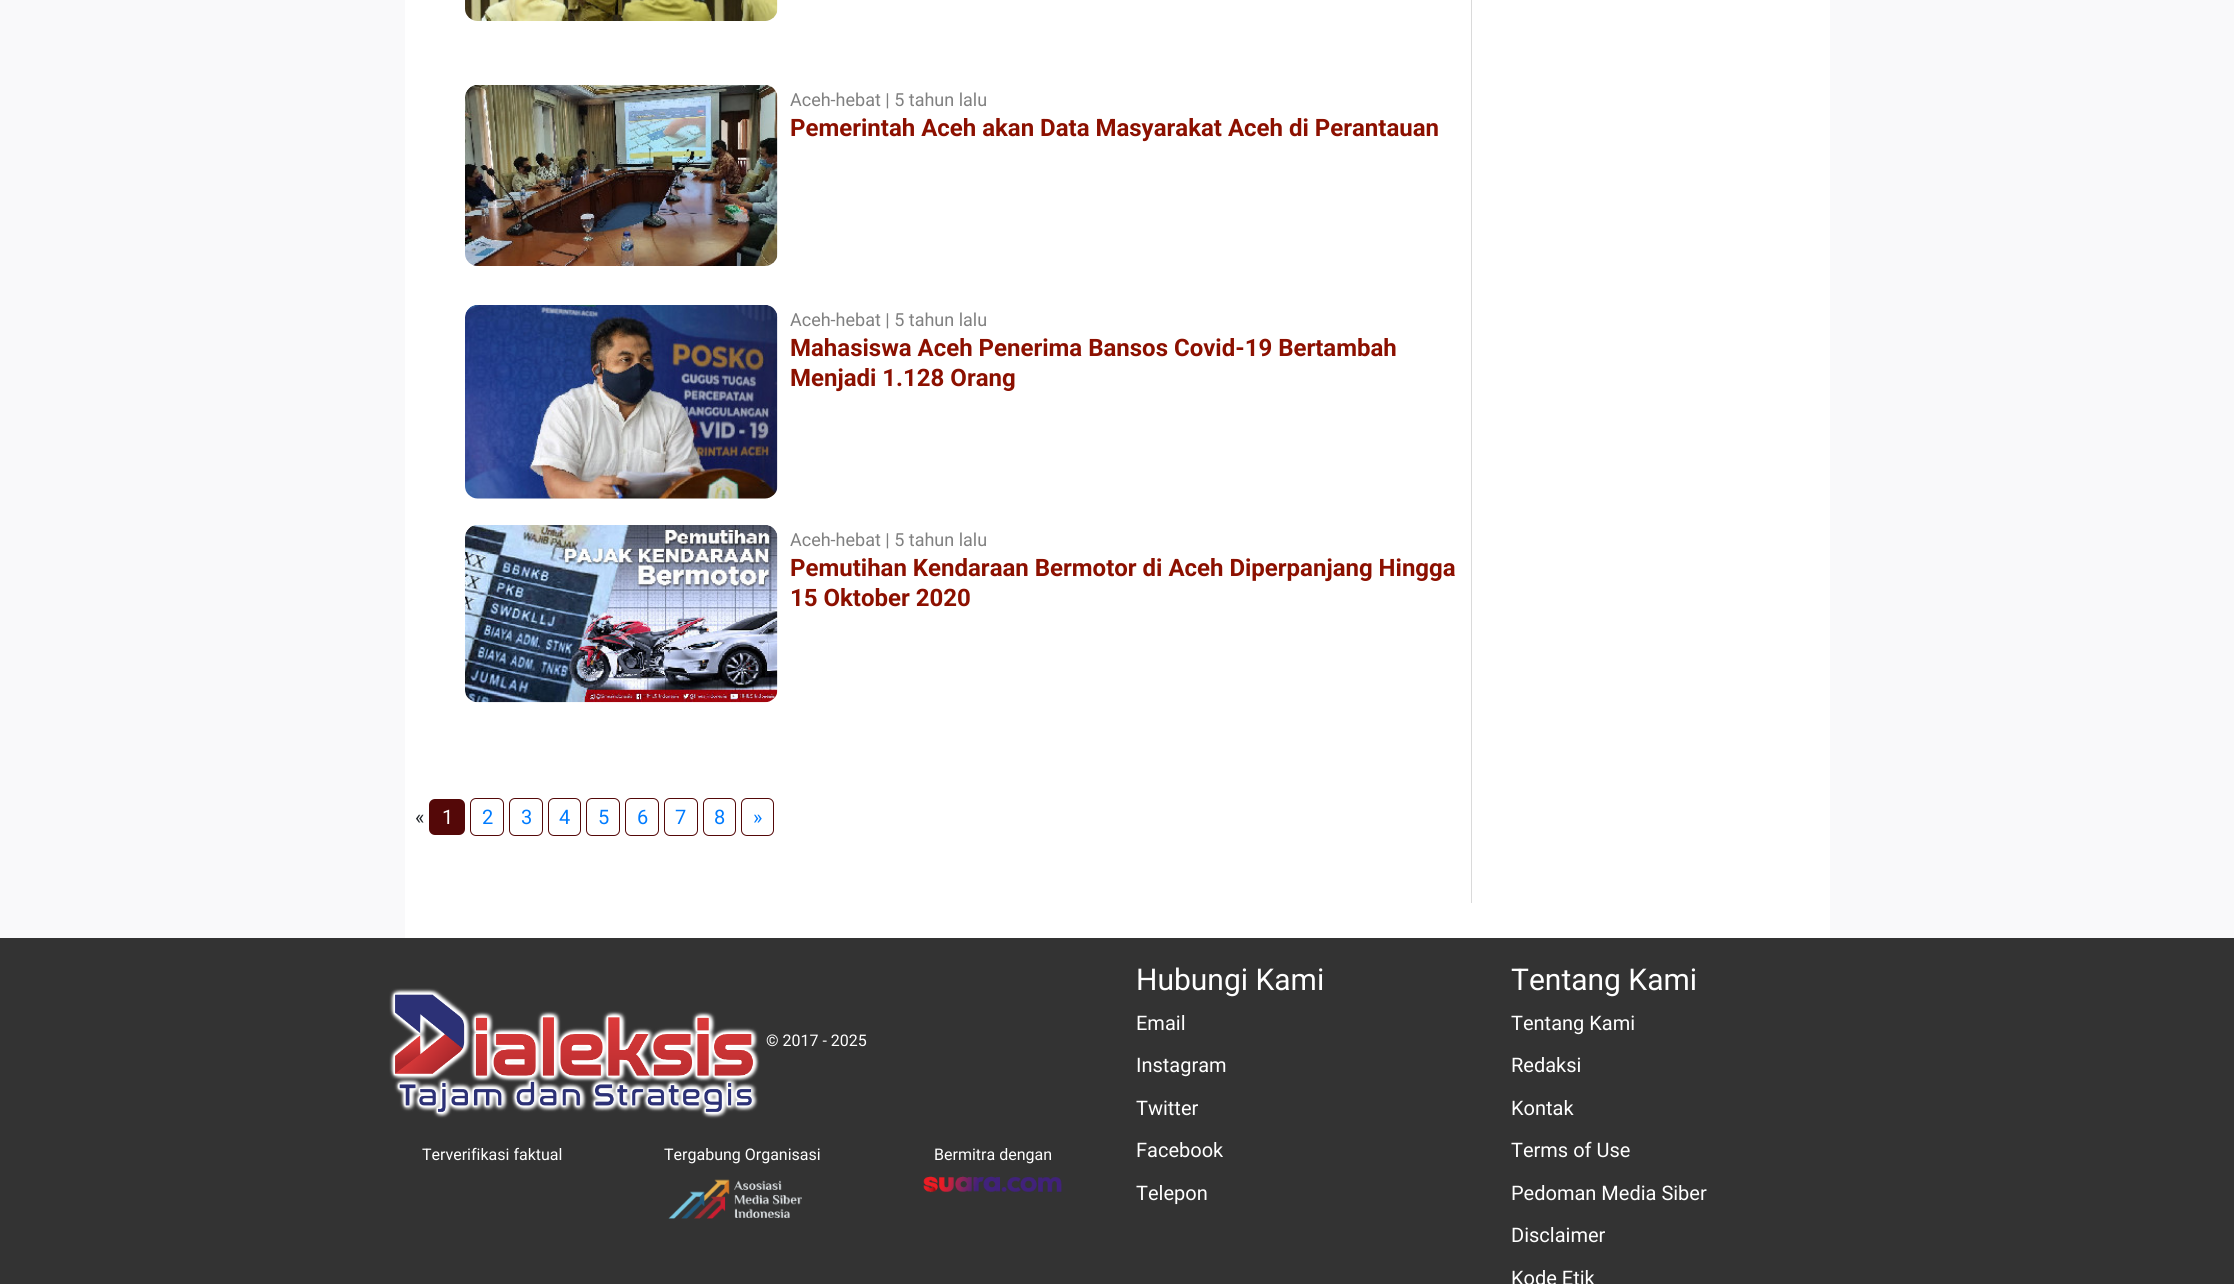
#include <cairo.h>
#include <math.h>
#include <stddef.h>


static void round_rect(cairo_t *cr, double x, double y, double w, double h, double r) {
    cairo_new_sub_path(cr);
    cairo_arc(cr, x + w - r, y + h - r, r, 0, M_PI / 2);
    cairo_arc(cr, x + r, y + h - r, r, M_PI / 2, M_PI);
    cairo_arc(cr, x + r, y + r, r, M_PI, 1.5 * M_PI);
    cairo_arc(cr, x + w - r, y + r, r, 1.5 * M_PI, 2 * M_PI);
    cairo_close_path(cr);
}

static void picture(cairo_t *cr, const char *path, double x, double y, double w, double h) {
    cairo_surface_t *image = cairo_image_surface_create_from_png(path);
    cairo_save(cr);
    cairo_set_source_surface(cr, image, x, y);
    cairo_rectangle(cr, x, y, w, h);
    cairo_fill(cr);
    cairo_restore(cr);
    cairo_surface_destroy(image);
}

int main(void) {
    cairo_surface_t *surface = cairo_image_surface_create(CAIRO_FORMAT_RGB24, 2234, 1284);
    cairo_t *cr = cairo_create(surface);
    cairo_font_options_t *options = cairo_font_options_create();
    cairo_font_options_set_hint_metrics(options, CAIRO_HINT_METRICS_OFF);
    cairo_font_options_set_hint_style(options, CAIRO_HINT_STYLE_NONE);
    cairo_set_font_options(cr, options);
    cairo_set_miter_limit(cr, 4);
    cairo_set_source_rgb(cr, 0.973, 0.976, 0.98);
    cairo_paint(cr);
    cairo_set_source_rgb(cr, 1, 1, 1);
    cairo_rectangle(cr, 405, 0, 1425, 938);
    cairo_fill(cr);
    picture(cr, "img1.png", 465, 0, 313, 21);
    picture(cr, "img2.png", 465, 85, 313, 181);
    cairo_select_font_face(cr, "Roboto", CAIRO_FONT_SLANT_NORMAL, CAIRO_FONT_WEIGHT_NORMAL);
    cairo_set_font_size(cr, 18);
    cairo_set_source_rgb(cr, 0.502, 0.502, 0.502);
    cairo_move_to(cr, 790, 106);
    cairo_show_text(cr, "Aceh-hebat | 5 tahun lalu");
    cairo_select_font_face(cr, "Roboto", CAIRO_FONT_SLANT_NORMAL, CAIRO_FONT_WEIGHT_BOLD);
    cairo_set_font_size(cr, 24);
    cairo_set_source_rgb(cr, 0.549, 0.063, 0);
    cairo_move_to(cr, 790, 136);
    cairo_show_text(cr, "Pemerintah Aceh akan Data Masyarakat Aceh di Perantauan");
    picture(cr, "img3.png", 465, 305, 313, 194);
    cairo_select_font_face(cr, "Roboto", CAIRO_FONT_SLANT_NORMAL, CAIRO_FONT_WEIGHT_NORMAL);
    cairo_set_font_size(cr, 18);
    cairo_set_source_rgb(cr, 0.502, 0.502, 0.502);
    cairo_move_to(cr, 790, 326);
    cairo_show_text(cr, "Aceh-hebat | 5 tahun lalu");
    cairo_select_font_face(cr, "Roboto", CAIRO_FONT_SLANT_NORMAL, CAIRO_FONT_WEIGHT_BOLD);
    cairo_set_font_size(cr, 24);
    cairo_set_source_rgb(cr, 0.549, 0.063, 0);
    cairo_move_to(cr, 790, 356);
    cairo_show_text(cr, "Mahasiswa Aceh Penerima Bansos Covid-19 Bertambah");
    cairo_move_to(cr, 790, 386);
    cairo_show_text(cr, "Menjadi 1.128 Orang");
    picture(cr, "img4.png", 465, 525, 313, 178);
    cairo_select_font_face(cr, "Roboto", CAIRO_FONT_SLANT_NORMAL, CAIRO_FONT_WEIGHT_NORMAL);
    cairo_set_font_size(cr, 18);
    cairo_set_source_rgb(cr, 0.502, 0.502, 0.502);
    cairo_move_to(cr, 790, 546);
    cairo_show_text(cr, "Aceh-hebat | 5 tahun lalu");
    cairo_select_font_face(cr, "Roboto", CAIRO_FONT_SLANT_NORMAL, CAIRO_FONT_WEIGHT_BOLD);
    cairo_set_font_size(cr, 24);
    cairo_set_source_rgb(cr, 0.549, 0.063, 0);
    cairo_move_to(cr, 790, 576);
    cairo_show_text(cr, "Pemutihan Kendaraan Bermotor di Aceh Diperpanjang Hingga");
    cairo_move_to(cr, 790, 606);
    cairo_show_text(cr, "15 Oktober 2020");
    cairo_select_font_face(cr, "Roboto", CAIRO_FONT_SLANT_NORMAL, CAIRO_FONT_WEIGHT_NORMAL);
    cairo_set_font_size(cr, 20);
    cairo_set_source_rgb(cr, 0.129, 0.145, 0.161);
    cairo_move_to(cr, 415, 824);
    cairo_show_text(cr, "«");
    cairo_set_source_rgb(cr, 0.329, 0.035, 0.035);
    round_rect(cr, 429, 799, 36, 36, 6);
    cairo_fill(cr);
    cairo_set_source_rgb(cr, 1, 1, 1);
    cairo_move_to(cr, 442, 824);
    cairo_show_text(cr, "1");
    round_rect(cr, 470.5, 798.5, 33, 37, 5.5);
    cairo_set_source_rgb(cr, 0.329, 0.035, 0.035);
    cairo_set_line_width(cr, 1);
    cairo_stroke(cr);
    cairo_set_source_rgb(cr, 0, 0.482, 1);
    cairo_move_to(cr, 482, 824);
    cairo_show_text(cr, "2");
    round_rect(cr, 509.5, 798.5, 33, 37, 5.5);
    cairo_set_source_rgb(cr, 0.329, 0.035, 0.035);
    cairo_stroke(cr);
    cairo_set_source_rgb(cr, 0, 0.482, 1);
    cairo_move_to(cr, 521, 824);
    cairo_show_text(cr, "3");
    round_rect(cr, 548.5, 798.5, 32, 37, 5.5);
    cairo_set_source_rgb(cr, 0.329, 0.035, 0.035);
    cairo_stroke(cr);
    cairo_set_source_rgb(cr, 0, 0.482, 1);
    cairo_move_to(cr, 559, 824);
    cairo_show_text(cr, "4");
    round_rect(cr, 586.5, 798.5, 33, 37, 5.5);
    cairo_set_source_rgb(cr, 0.329, 0.035, 0.035);
    cairo_stroke(cr);
    cairo_set_source_rgb(cr, 0, 0.482, 1);
    cairo_move_to(cr, 598, 824);
    cairo_show_text(cr, "5");
    round_rect(cr, 625.5, 798.5, 33, 37, 5.5);
    cairo_set_source_rgb(cr, 0.329, 0.035, 0.035);
    cairo_stroke(cr);
    cairo_set_source_rgb(cr, 0, 0.482, 1);
    cairo_move_to(cr, 637, 824);
    cairo_show_text(cr, "6");
    round_rect(cr, 664.5, 798.5, 33, 37, 5.5);
    cairo_set_source_rgb(cr, 0.329, 0.035, 0.035);
    cairo_stroke(cr);
    cairo_set_source_rgb(cr, 0, 0.482, 1);
    cairo_move_to(cr, 675, 824);
    cairo_show_text(cr, "7");
    round_rect(cr, 703.5, 798.5, 32, 37, 5.5);
    cairo_set_source_rgb(cr, 0.329, 0.035, 0.035);
    cairo_stroke(cr);
    cairo_set_source_rgb(cr, 0, 0.482, 1);
    cairo_move_to(cr, 714, 824);
    cairo_show_text(cr, "8");
    round_rect(cr, 741.5, 798.5, 32, 37, 5.5);
    cairo_set_source_rgb(cr, 0.329, 0.035, 0.035);
    cairo_stroke(cr);
    cairo_set_source_rgb(cr, 0, 0.482, 1);
    cairo_move_to(cr, 753, 824);
    cairo_show_text(cr, "»");
    cairo_set_source_rgb(cr, 0.855, 0.855, 0.855);
    cairo_rectangle(cr, 1471, 0, 1, 903);
    cairo_fill(cr);
    cairo_set_source_rgb(cr, 0.2, 0.2, 0.2);
    cairo_rectangle(cr, 0, 938, 2234, 346);
    cairo_fill(cr);
    picture(cr, "img5.png", 389, 988, 371, 131);
    cairo_set_font_size(cr, 16);
    cairo_set_source_rgb(cr, 1, 1, 1);
    cairo_move_to(cr, 766, 1046);
    cairo_show_text(cr, "© 2017 - 2025");
    cairo_move_to(cr, 422, 1160);
    cairo_show_text(cr, "Terverifikasi faktual");
    cairo_move_to(cr, 664, 1160);
    cairo_show_text(cr, "Tergabung Organisasi");
    picture(cr, "img6.png", 668, 1179, 134, 40);
    cairo_move_to(cr, 934, 1160);
    cairo_show_text(cr, "Bermitra dengan");
    picture(cr, "img7.png", 923, 1176, 139, 17);
    cairo_set_font_size(cr, 30);
    cairo_move_to(cr, 1136, 990);
    cairo_show_text(cr, "Hubungi Kami");
    cairo_set_font_size(cr, 20);
    cairo_move_to(cr, 1136, 1030);
    cairo_show_text(cr, "Email");
    cairo_move_to(cr, 1136, 1072);
    cairo_show_text(cr, "Instagram");
    cairo_move_to(cr, 1136, 1115);
    cairo_show_text(cr, "Twitter");
    cairo_move_to(cr, 1136, 1157);
    cairo_show_text(cr, "Facebook");
    cairo_move_to(cr, 1136, 1200);
    cairo_show_text(cr, "Telepon");
    cairo_set_font_size(cr, 30);
    cairo_move_to(cr, 1511, 990);
    cairo_show_text(cr, "Tentang Kami");
    cairo_set_font_size(cr, 20);
    cairo_move_to(cr, 1511, 1030);
    cairo_show_text(cr, "Tentang Kami");
    cairo_move_to(cr, 1511, 1072);
    cairo_show_text(cr, "Redaksi");
    cairo_move_to(cr, 1511, 1115);
    cairo_show_text(cr, "Kontak");
    cairo_move_to(cr, 1511, 1157);
    cairo_show_text(cr, "Terms of Use");
    cairo_move_to(cr, 1511, 1200);
    cairo_show_text(cr, "Pedoman Media Siber");
    cairo_move_to(cr, 1511, 1242);
    cairo_show_text(cr, "Disclaimer");
    cairo_move_to(cr, 1511, 1285);
    cairo_show_text(cr, "Kode Etik");
    cairo_surface_write_to_png(surface, "page.png");
    cairo_font_options_destroy(options);
    cairo_destroy(cr);
    cairo_surface_destroy(surface);
    return 0;
}
